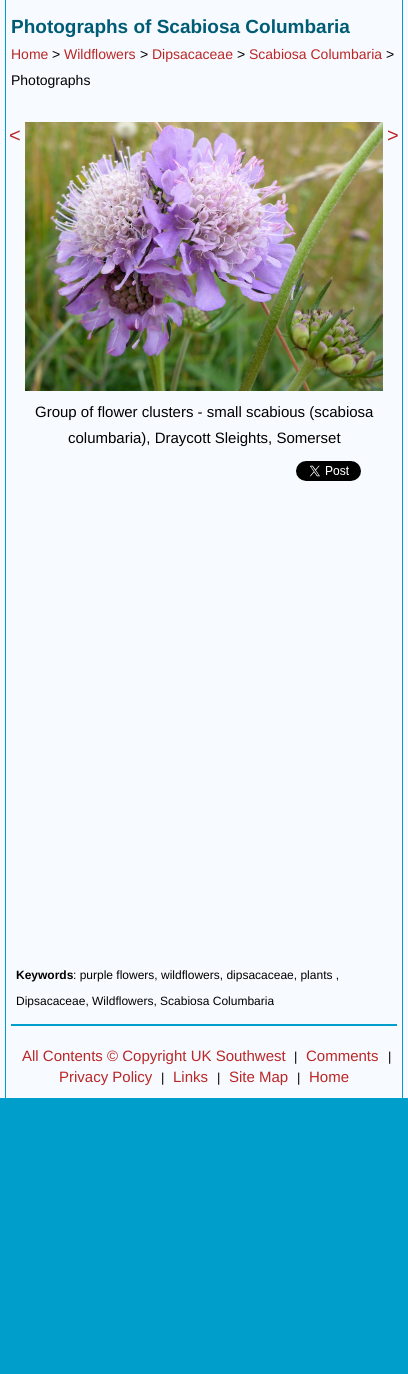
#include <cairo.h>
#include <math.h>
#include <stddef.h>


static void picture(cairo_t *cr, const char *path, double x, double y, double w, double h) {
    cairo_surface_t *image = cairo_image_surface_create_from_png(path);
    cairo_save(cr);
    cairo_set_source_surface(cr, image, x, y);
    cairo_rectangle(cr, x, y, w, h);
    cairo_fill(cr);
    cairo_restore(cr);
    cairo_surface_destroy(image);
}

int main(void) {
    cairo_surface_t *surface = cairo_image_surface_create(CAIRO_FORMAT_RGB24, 408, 1374);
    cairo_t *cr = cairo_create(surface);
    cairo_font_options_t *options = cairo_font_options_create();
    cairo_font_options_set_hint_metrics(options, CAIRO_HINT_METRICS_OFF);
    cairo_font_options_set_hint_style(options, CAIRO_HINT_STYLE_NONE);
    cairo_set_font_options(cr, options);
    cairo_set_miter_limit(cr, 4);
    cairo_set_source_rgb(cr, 0, 0.624, 0.796);
    cairo_paint(cr);
    cairo_set_source_rgb(cr, 0.965, 0.98, 1);
    cairo_rectangle(cr, 0, 0, 408, 1098);
    cairo_fill(cr);
    cairo_set_source_rgb(cr, 0, 0.624, 0.796);
    cairo_rectangle(cr, 402, 0, 1, 1098);
    cairo_fill(cr);
    cairo_rectangle(cr, 5, 0, 1, 1098);
    cairo_fill(cr);
    cairo_select_font_face(cr, "Liberation Sans", CAIRO_FONT_SLANT_NORMAL, CAIRO_FONT_WEIGHT_BOLD);
    cairo_set_font_size(cr, 19);
    cairo_set_source_rgb(cr, 0, 0.361, 0.459);
    cairo_move_to(cr, 11, 33);
    cairo_show_text(cr, "Photographs of Scabiosa Columbaria");
    cairo_select_font_face(cr, "Liberation Sans", CAIRO_FONT_SLANT_NORMAL, CAIRO_FONT_WEIGHT_NORMAL);
    cairo_set_font_size(cr, 14);
    cairo_set_source_rgb(cr, 0.725, 0.153, 0.149);
    cairo_move_to(cr, 11, 59);
    cairo_show_text(cr, "Home");
    cairo_set_source_rgb(cr, 0, 0, 0);
    cairo_move_to(cr, 52, 59);
    cairo_show_text(cr, ">");
    cairo_set_source_rgb(cr, 0.725, 0.153, 0.149);
    cairo_move_to(cr, 64, 59);
    cairo_show_text(cr, "Wildflowers");
    cairo_set_source_rgb(cr, 0, 0, 0);
    cairo_move_to(cr, 140, 59);
    cairo_show_text(cr, ">");
    cairo_set_source_rgb(cr, 0.725, 0.153, 0.149);
    cairo_move_to(cr, 152, 59);
    cairo_show_text(cr, "Dipsacaceae");
    cairo_set_source_rgb(cr, 0, 0, 0);
    cairo_move_to(cr, 237, 59);
    cairo_show_text(cr, ">");
    cairo_set_source_rgb(cr, 0.725, 0.153, 0.149);
    cairo_move_to(cr, 249, 59);
    cairo_show_text(cr, "Scabiosa Columbaria");
    cairo_set_source_rgb(cr, 0, 0, 0);
    cairo_move_to(cr, 386, 59);
    cairo_show_text(cr, ">");
    cairo_move_to(cr, 11, 85);
    cairo_show_text(cr, "Photographs");
    cairo_set_font_size(cr, 20);
    cairo_set_source_rgb(cr, 0.725, 0.153, 0.149);
    cairo_move_to(cr, 9, 142);
    cairo_show_text(cr, "<");
    cairo_move_to(cr, 387, 142);
    cairo_show_text(cr, ">");
    picture(cr, "img1.png", 25, 122, 358, 269);
    cairo_set_font_size(cr, 15);
    cairo_set_source_rgb(cr, 0, 0, 0);
    cairo_move_to(cr, 35, 417);
    cairo_show_text(cr, "Group of flower clusters - small scabious (scabiosa");
    cairo_move_to(cr, 68, 443);
    cairo_show_text(cr, "columbaria), Draycott Sleights, Somerset");
    picture(cr, "img2.png", 296, 461, 65, 20);
    cairo_select_font_face(cr, "Liberation Sans", CAIRO_FONT_SLANT_NORMAL, CAIRO_FONT_WEIGHT_BOLD);
    cairo_set_font_size(cr, 12);
    cairo_move_to(cr, 16, 979);
    cairo_show_text(cr, "Keywords");
    cairo_select_font_face(cr, "Liberation Sans", CAIRO_FONT_SLANT_NORMAL, CAIRO_FONT_WEIGHT_NORMAL);
    cairo_move_to(cr, 73, 979);
    cairo_show_text(cr, ": purple flowers, wildflowers, dipsacaceae, plants ,");
    cairo_move_to(cr, 16, 1005);
    cairo_show_text(cr, "Dipsacaceae, Wildflowers, Scabiosa Columbaria");
    cairo_set_source_rgb(cr, 0, 0.624, 0.796);
    cairo_rectangle(cr, 11, 1024, 386, 2);
    cairo_fill(cr);
    cairo_set_font_size(cr, 15);
    cairo_set_source_rgb(cr, 0.725, 0.153, 0.149);
    cairo_move_to(cr, 22, 1061);
    cairo_show_text(cr, "All Contents © Copyright UK Southwest");
    cairo_set_font_size(cr, 13);
    cairo_set_source_rgb(cr, 0, 0, 0);
    cairo_move_to(cr, 294, 1061);
    cairo_show_text(cr, "|");
    cairo_set_font_size(cr, 15);
    cairo_set_source_rgb(cr, 0.725, 0.153, 0.149);
    cairo_move_to(cr, 306, 1061);
    cairo_show_text(cr, "Comments");
    cairo_set_font_size(cr, 13);
    cairo_set_source_rgb(cr, 0, 0, 0);
    cairo_move_to(cr, 388, 1061);
    cairo_show_text(cr, "|");
    cairo_set_font_size(cr, 15);
    cairo_set_source_rgb(cr, 0.725, 0.153, 0.149);
    cairo_move_to(cr, 59, 1082);
    cairo_show_text(cr, "Privacy Policy");
    cairo_set_font_size(cr, 13);
    cairo_set_source_rgb(cr, 0, 0, 0);
    cairo_move_to(cr, 161, 1082);
    cairo_show_text(cr, "|");
    cairo_set_font_size(cr, 15);
    cairo_set_source_rgb(cr, 0.725, 0.153, 0.149);
    cairo_move_to(cr, 173, 1082);
    cairo_show_text(cr, "Links");
    cairo_set_font_size(cr, 13);
    cairo_set_source_rgb(cr, 0, 0, 0);
    cairo_move_to(cr, 217, 1082);
    cairo_show_text(cr, "|");
    cairo_set_font_size(cr, 15);
    cairo_set_source_rgb(cr, 0.725, 0.153, 0.149);
    cairo_move_to(cr, 229, 1082);
    cairo_show_text(cr, "Site Map");
    cairo_set_font_size(cr, 13);
    cairo_set_source_rgb(cr, 0, 0, 0);
    cairo_move_to(cr, 297, 1082);
    cairo_show_text(cr, "|");
    cairo_set_font_size(cr, 15);
    cairo_set_source_rgb(cr, 0.725, 0.153, 0.149);
    cairo_move_to(cr, 309, 1082);
    cairo_show_text(cr, "Home");
    cairo_surface_write_to_png(surface, "page.png");
    cairo_font_options_destroy(options);
    cairo_destroy(cr);
    cairo_surface_destroy(surface);
    return 0;
}
